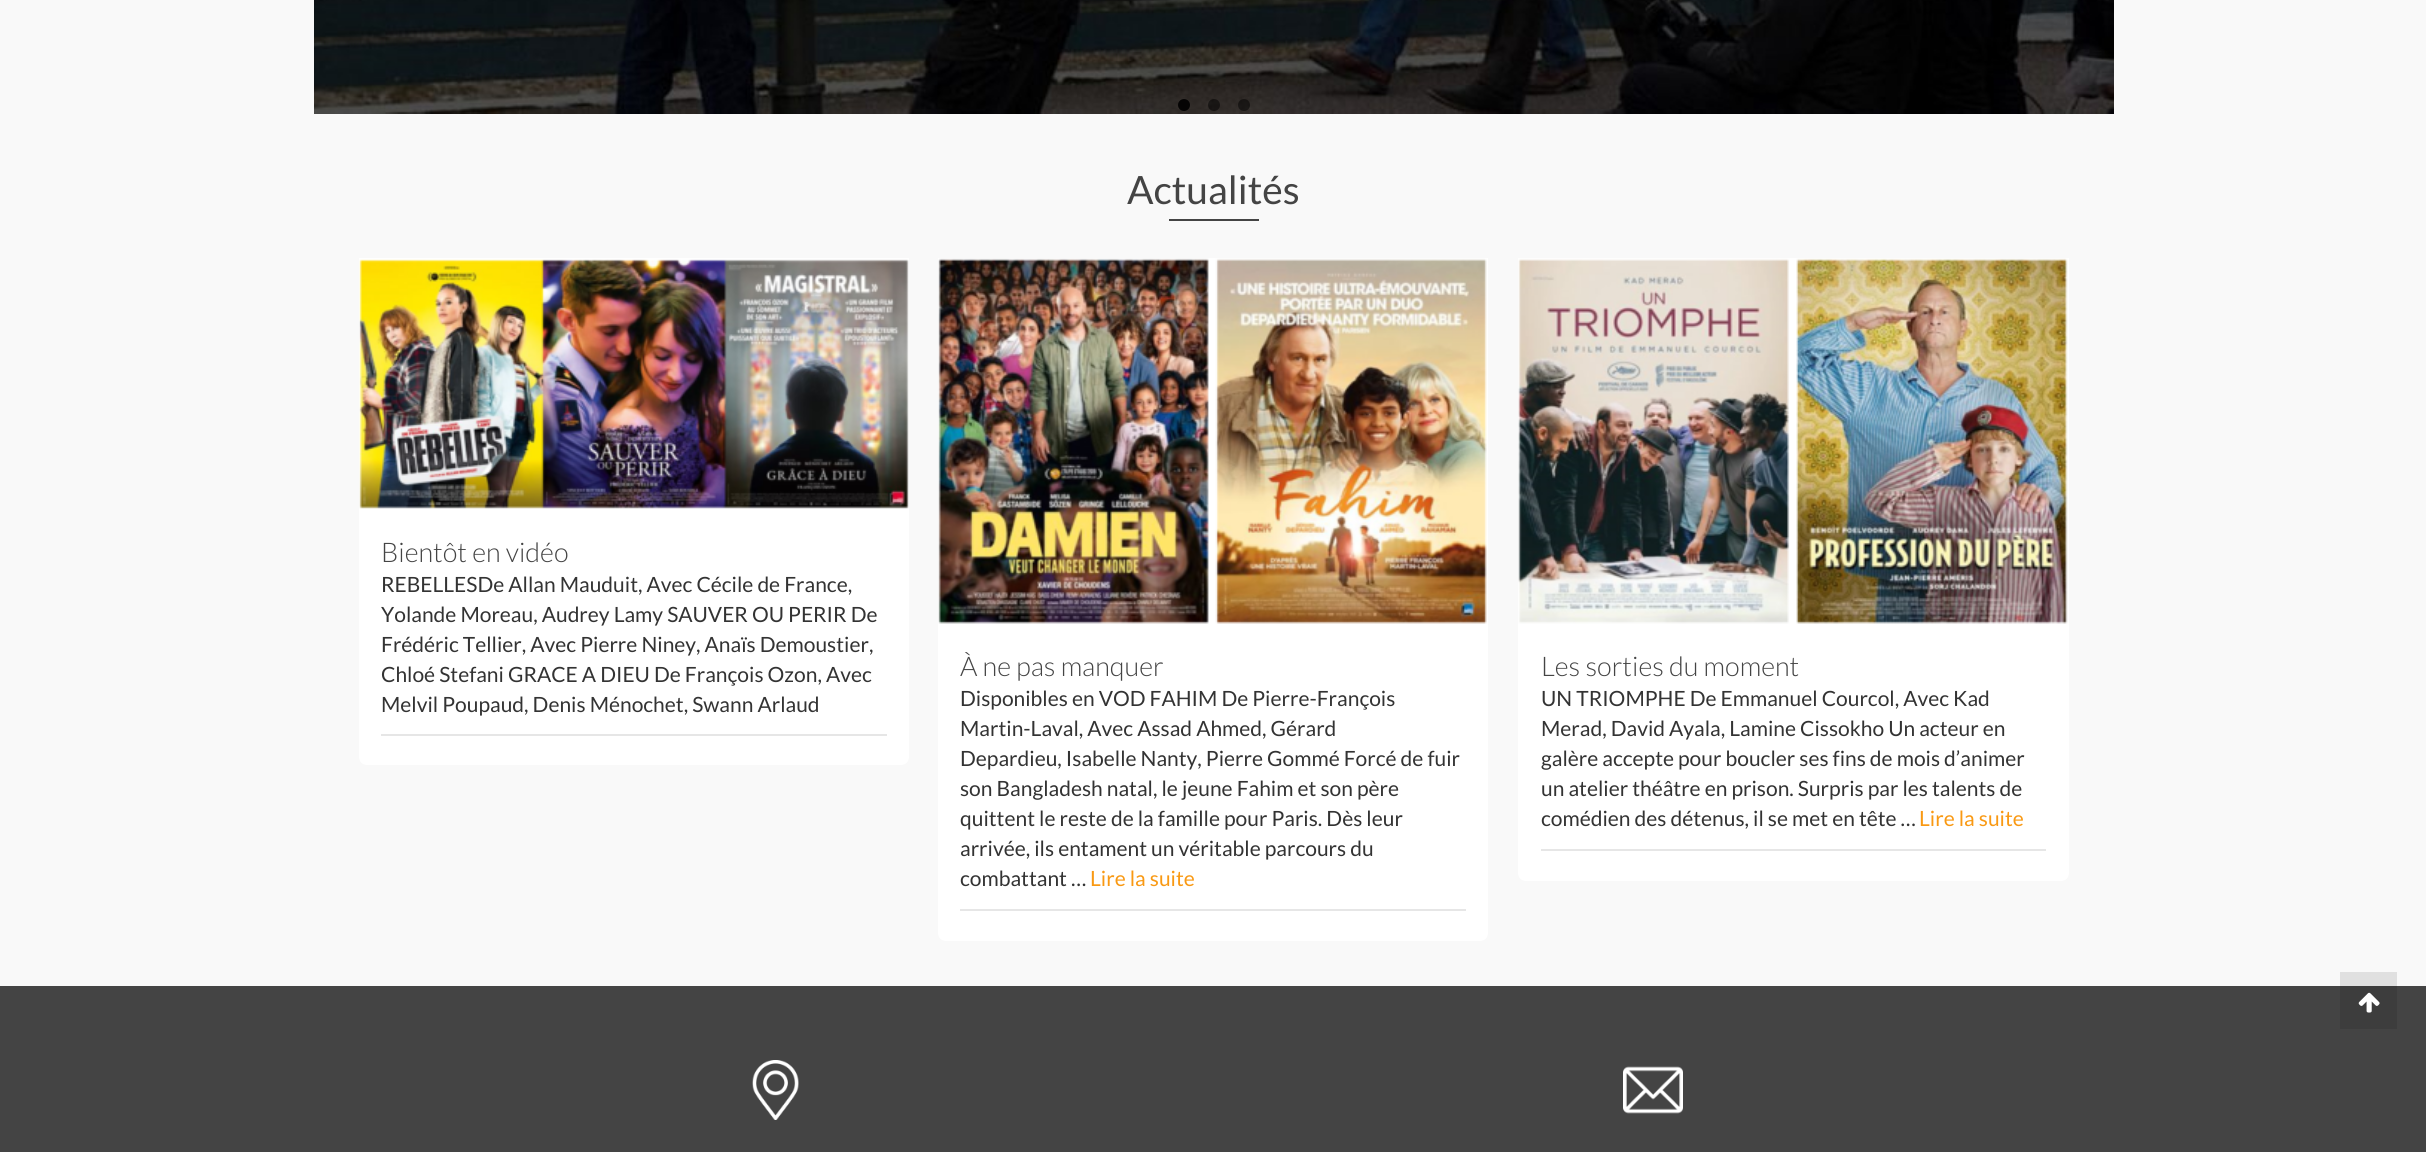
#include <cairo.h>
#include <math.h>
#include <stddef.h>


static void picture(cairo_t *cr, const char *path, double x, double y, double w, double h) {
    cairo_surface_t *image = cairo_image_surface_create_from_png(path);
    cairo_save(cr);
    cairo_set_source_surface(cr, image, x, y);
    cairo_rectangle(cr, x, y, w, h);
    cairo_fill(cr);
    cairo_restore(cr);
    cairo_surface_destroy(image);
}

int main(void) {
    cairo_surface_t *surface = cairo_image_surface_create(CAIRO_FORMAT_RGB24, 2426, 1152);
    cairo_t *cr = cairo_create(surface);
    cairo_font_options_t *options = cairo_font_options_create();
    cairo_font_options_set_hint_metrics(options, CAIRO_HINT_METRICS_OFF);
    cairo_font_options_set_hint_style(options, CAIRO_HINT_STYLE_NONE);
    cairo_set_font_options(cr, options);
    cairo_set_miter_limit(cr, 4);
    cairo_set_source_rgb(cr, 0.976, 0.976, 0.976);
    cairo_paint(cr);
    cairo_set_source_rgb(cr, 0.878, 0.878, 0.878);
    cairo_rectangle(cr, 2340, 972, 57, 14);
    cairo_fill(cr);
    picture(cr, "img1.png", 314, 0, 1800, 114);
    cairo_set_source_rgba(cr, 0, 0, 0, 0.9);
    cairo_arc(cr, 1184, 105, 6, 0, 2 * M_PI);
    cairo_fill(cr);
    cairo_set_source_rgba(cr, 0, 0, 0, 0.5);
    cairo_arc(cr, 1214, 105, 6, 0, 2 * M_PI);
    cairo_fill(cr);
    cairo_arc(cr, 1244, 105, 6, 0, 2 * M_PI);
    cairo_fill(cr);
    cairo_select_font_face(cr, "Lato", CAIRO_FONT_SLANT_NORMAL, CAIRO_FONT_WEIGHT_NORMAL);
    cairo_set_font_size(cr, 39);
    cairo_set_source_rgb(cr, 0.267, 0.267, 0.267);
    cairo_move_to(cr, 1127, 204);
    cairo_show_text(cr, "Actualités");
    cairo_rectangle(cr, 1169, 219, 90, 2);
    cairo_fill(cr);
    cairo_set_source_rgb(cr, 1, 1, 1);
    cairo_new_path(cr);
    cairo_move_to(cr, 359, 258);
    cairo_line_to(cr, 909, 258);
    cairo_line_to(cr, 909, 757);
    cairo_curve_to(cr, 909, 761.5, 905.5, 765, 901, 765);
    cairo_line_to(cr, 367, 765);
    cairo_curve_to(cr, 362.5, 765, 359, 761.5, 359, 757);
    cairo_close_path(cr);
    cairo_fill(cr);
    picture(cr, "img2.png", 359, 259, 550, 250);
    cairo_select_font_face(cr, "Lato Light", CAIRO_FONT_SLANT_NORMAL, CAIRO_FONT_WEIGHT_NORMAL);
    cairo_set_font_size(cr, 27);
    cairo_set_source_rgb(cr, 0.267, 0.267, 0.267);
    cairo_move_to(cr, 381, 562);
    cairo_show_text(cr, "Bientôt en vidéo");
    cairo_select_font_face(cr, "Lato", CAIRO_FONT_SLANT_NORMAL, CAIRO_FONT_WEIGHT_NORMAL);
    cairo_set_font_size(cr, 21);
    cairo_set_source_rgb(cr, 0.2, 0.2, 0.2);
    cairo_move_to(cr, 381, 592);
    cairo_show_text(cr, "REBELLESDe Allan Mauduit, Avec Cécile de France,");
    cairo_move_to(cr, 381, 622);
    cairo_show_text(cr, "Yolande Moreau, Audrey Lamy SAUVER OU PERIR De");
    cairo_move_to(cr, 381, 652);
    cairo_show_text(cr, "Frédéric Tellier, Avec Pierre Niney, Anaïs Demoustier,");
    cairo_move_to(cr, 381, 682);
    cairo_show_text(cr, "Chloé Stefani GRACE A DIEU De François Ozon, Avec");
    cairo_move_to(cr, 381, 712);
    cairo_show_text(cr, "Melvil Poupaud, Denis Ménochet, Swann Arlaud");
    cairo_set_source_rgb(cr, 0.902, 0.902, 0.902);
    cairo_rectangle(cr, 381, 734, 506, 2);
    cairo_fill(cr);
    cairo_set_source_rgb(cr, 1, 1, 1);
    cairo_new_path(cr);
    cairo_move_to(cr, 938, 258);
    cairo_line_to(cr, 1488, 258);
    cairo_line_to(cr, 1488, 933);
    cairo_curve_to(cr, 1488, 937.5, 1484.5, 941, 1480, 941);
    cairo_line_to(cr, 946, 941);
    cairo_curve_to(cr, 941.5, 941, 938, 937.5, 938, 933);
    cairo_close_path(cr);
    cairo_fill(cr);
    picture(cr, "img3.png", 938, 258, 549, 366);
    cairo_select_font_face(cr, "Lato Light", CAIRO_FONT_SLANT_NORMAL, CAIRO_FONT_WEIGHT_NORMAL);
    cairo_set_font_size(cr, 27);
    cairo_set_source_rgb(cr, 0.267, 0.267, 0.267);
    cairo_move_to(cr, 960, 676);
    cairo_show_text(cr, "À ne pas manquer");
    cairo_select_font_face(cr, "Lato", CAIRO_FONT_SLANT_NORMAL, CAIRO_FONT_WEIGHT_NORMAL);
    cairo_set_font_size(cr, 21);
    cairo_set_source_rgb(cr, 0.2, 0.2, 0.2);
    cairo_move_to(cr, 960, 706);
    cairo_show_text(cr, "Disponibles en VOD FAHIM De Pierre-François");
    cairo_move_to(cr, 960, 736);
    cairo_show_text(cr, "Martin-Laval, Avec Assad Ahmed, Gérard");
    cairo_move_to(cr, 960, 766);
    cairo_show_text(cr, "Depardieu, Isabelle Nanty, Pierre Gommé Forcé de fuir");
    cairo_move_to(cr, 960, 796);
    cairo_show_text(cr, "son Bangladesh natal, le jeune Fahim et son père");
    cairo_move_to(cr, 960, 826);
    cairo_show_text(cr, "quittent le reste de la famille pour Paris. Dès leur");
    cairo_move_to(cr, 960, 856);
    cairo_show_text(cr, "arrivée, ils entament un véritable parcours du");
    cairo_move_to(cr, 960, 886);
    cairo_show_text(cr, "combattant …");
    cairo_set_source_rgb(cr, 0.976, 0.6, 0.078);
    cairo_move_to(cr, 1090, 886);
    cairo_show_text(cr, "Lire la suite");
    cairo_set_source_rgb(cr, 0.902, 0.902, 0.902);
    cairo_rectangle(cr, 960, 909, 506, 2);
    cairo_fill(cr);
    cairo_set_source_rgb(cr, 1, 1, 1);
    cairo_new_path(cr);
    cairo_move_to(cr, 1518, 258);
    cairo_line_to(cr, 2069, 258);
    cairo_line_to(cr, 2069, 873);
    cairo_curve_to(cr, 2069, 877.5, 2065.5, 881, 2061, 881);
    cairo_line_to(cr, 1526, 881);
    cairo_curve_to(cr, 1521.5, 881, 1518, 877.5, 1518, 873);
    cairo_close_path(cr);
    cairo_fill(cr);
    picture(cr, "img4.png", 1518, 258, 550, 366);
    cairo_select_font_face(cr, "Lato Light", CAIRO_FONT_SLANT_NORMAL, CAIRO_FONT_WEIGHT_NORMAL);
    cairo_set_font_size(cr, 27);
    cairo_set_source_rgb(cr, 0.267, 0.267, 0.267);
    cairo_move_to(cr, 1541, 676);
    cairo_show_text(cr, "Les sorties du moment");
    cairo_select_font_face(cr, "Lato", CAIRO_FONT_SLANT_NORMAL, CAIRO_FONT_WEIGHT_NORMAL);
    cairo_set_font_size(cr, 21);
    cairo_set_source_rgb(cr, 0.2, 0.2, 0.2);
    cairo_move_to(cr, 1541, 706);
    cairo_show_text(cr, "UN TRIOMPHE De Emmanuel Courcol, Avec Kad");
    cairo_move_to(cr, 1541, 736);
    cairo_show_text(cr, "Merad, David Ayala, Lamine Cissokho Un acteur en");
    cairo_move_to(cr, 1541, 766);
    cairo_show_text(cr, "galère accepte pour boucler ses fins de mois d’animer");
    cairo_move_to(cr, 1541, 796);
    cairo_show_text(cr, "un atelier théâtre en prison. Surpris par les talents de");
    cairo_move_to(cr, 1541, 826);
    cairo_show_text(cr, "comédien des détenus, il se met en tête …");
    cairo_set_source_rgb(cr, 0.976, 0.6, 0.078);
    cairo_move_to(cr, 1919, 826);
    cairo_show_text(cr, "Lire la suite");
    cairo_set_source_rgb(cr, 0.902, 0.902, 0.902);
    cairo_rectangle(cr, 1541, 849, 505, 2);
    cairo_fill(cr);
    cairo_set_source_rgb(cr, 0.267, 0.267, 0.267);
    cairo_rectangle(cr, 0, 986, 2426, 166);
    cairo_fill(cr);
    cairo_set_source_rgb(cr, 0.239, 0.239, 0.239);
    cairo_rectangle(cr, 2340, 986, 57, 43);
    cairo_fill(cr);
    picture(cr, "img5.png", 752, 1060, 47, 60);
    picture(cr, "img6.png", 1623, 1066, 60, 48);
    picture(cr, "img7.png", 2358, 992, 22, 21);
    cairo_surface_write_to_png(surface, "page.png");
    cairo_font_options_destroy(options);
    cairo_destroy(cr);
    cairo_surface_destroy(surface);
    return 0;
}
